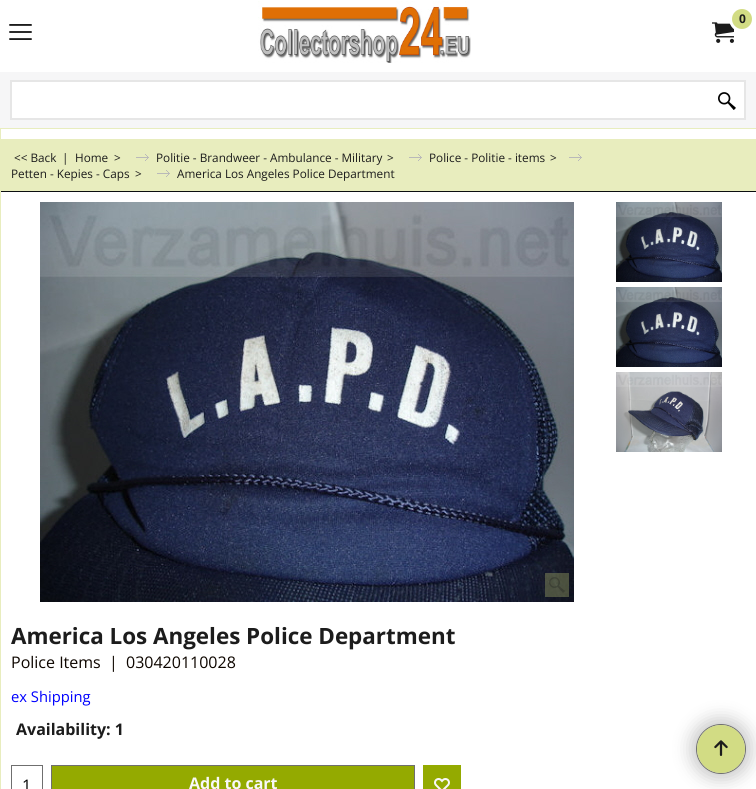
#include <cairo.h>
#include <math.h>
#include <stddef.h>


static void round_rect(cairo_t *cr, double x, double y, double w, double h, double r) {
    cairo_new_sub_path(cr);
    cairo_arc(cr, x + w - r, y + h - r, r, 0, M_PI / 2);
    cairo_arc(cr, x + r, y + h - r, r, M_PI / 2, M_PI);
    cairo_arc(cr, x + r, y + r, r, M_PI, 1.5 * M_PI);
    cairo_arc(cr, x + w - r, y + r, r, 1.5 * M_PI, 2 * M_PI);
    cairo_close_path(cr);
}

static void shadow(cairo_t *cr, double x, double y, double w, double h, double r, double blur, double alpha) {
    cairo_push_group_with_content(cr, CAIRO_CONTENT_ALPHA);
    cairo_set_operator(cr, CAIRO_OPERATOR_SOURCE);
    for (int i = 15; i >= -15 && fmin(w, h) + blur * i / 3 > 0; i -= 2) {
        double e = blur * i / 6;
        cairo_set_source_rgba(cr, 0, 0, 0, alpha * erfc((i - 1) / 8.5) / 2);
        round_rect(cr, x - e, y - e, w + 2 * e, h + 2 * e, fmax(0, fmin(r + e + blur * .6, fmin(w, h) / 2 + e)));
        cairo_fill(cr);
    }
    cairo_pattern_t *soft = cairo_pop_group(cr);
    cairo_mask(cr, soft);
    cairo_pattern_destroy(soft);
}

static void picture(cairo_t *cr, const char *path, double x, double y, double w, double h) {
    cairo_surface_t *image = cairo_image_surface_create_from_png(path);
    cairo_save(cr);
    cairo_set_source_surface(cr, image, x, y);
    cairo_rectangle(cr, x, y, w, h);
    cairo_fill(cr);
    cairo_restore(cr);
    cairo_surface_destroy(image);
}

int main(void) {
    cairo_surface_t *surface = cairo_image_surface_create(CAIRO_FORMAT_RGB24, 756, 789);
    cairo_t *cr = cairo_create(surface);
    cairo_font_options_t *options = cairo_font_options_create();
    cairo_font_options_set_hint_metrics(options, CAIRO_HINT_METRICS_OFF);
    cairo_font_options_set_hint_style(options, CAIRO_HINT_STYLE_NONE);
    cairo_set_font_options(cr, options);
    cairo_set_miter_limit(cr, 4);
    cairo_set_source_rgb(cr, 0.91, 0.929, 0.745);
    cairo_paint(cr);
    cairo_set_source_rgb(cr, 1, 1, 1);
    cairo_rectangle(cr, 0, 0, 756, 72);
    cairo_fill(cr);
    picture(cr, "img1.png", 258, 1, 213, 62);
    picture(cr, "img2.png", 712, 22, 22, 21);
    cairo_set_source_rgb(cr, 0.824, 0.863, 0.518);
    cairo_arc(cr, 742, 19, 11.5, 0, 2 * M_PI);
    cairo_fill_preserve(cr);
    cairo_set_source_rgb(cr, 1, 1, 1);
    cairo_set_line_width(cr, 3);
    cairo_stroke(cr);
    cairo_select_font_face(cr, "Open Sans", CAIRO_FONT_SLANT_NORMAL, CAIRO_FONT_WEIGHT_BOLD);
    cairo_set_font_size(cr, 12);
    cairo_set_source_rgb(cr, 0.11, 0.11, 0.11);
    cairo_move_to(cr, 739, 23);
    cairo_show_text(cr, "0");
    picture(cr, "img3.png", 9, 24, 23, 16);
    cairo_set_source_rgb(cr, 0.961, 0.961, 0.965);
    cairo_rectangle(cr, 0, 72, 756, 56);
    cairo_fill(cr);
    cairo_set_source_rgb(cr, 1, 1, 1);
    cairo_rectangle(cr, 11, 81, 734, 38);
    cairo_fill_preserve(cr);
    cairo_set_source_rgb(cr, 0.902, 0.902, 0.902);
    cairo_set_line_width(cr, 2);
    cairo_stroke(cr);
    picture(cr, "img4.png", 718, 92, 18, 18);
    cairo_set_source_rgb(cr, 1, 1, 1);
    cairo_rectangle(cr, 1, 129, 755, 660);
    cairo_fill(cr);
    cairo_set_source_rgb(cr, 0.91, 0.929, 0.745);
    cairo_rectangle(cr, 1, 139, 755, 52);
    cairo_fill(cr);
    cairo_set_source_rgb(cr, 0.043, 0.055, 0.063);
    cairo_rectangle(cr, 1, 191, 755, 1);
    cairo_fill(cr);
    cairo_select_font_face(cr, "Open Sans", CAIRO_FONT_SLANT_NORMAL, CAIRO_FONT_WEIGHT_NORMAL);
    cairo_set_font_size(cr, 11.75);
    cairo_set_source_rgb(cr, 0.11, 0.11, 0.11);
    cairo_move_to(cr, 14, 162);
    cairo_show_text(cr, "<< Back");
    cairo_move_to(cr, 62, 162);
    cairo_show_text(cr, "|");
    cairo_move_to(cr, 75, 162);
    cairo_show_text(cr, "Home");
    cairo_move_to(cr, 114, 162);
    cairo_show_text(cr, ">");
    picture(cr, "img5.png", 136, 154, 13, 7);
    cairo_move_to(cr, 156, 162);
    cairo_show_text(cr, "Politie - Brandweer - Ambulance - Military");
    cairo_move_to(cr, 387, 162);
    cairo_show_text(cr, ">");
    picture(cr, "img5.png", 409, 154, 13, 7);
    cairo_move_to(cr, 429, 162);
    cairo_show_text(cr, "Police - Politie - items");
    cairo_move_to(cr, 550, 162);
    cairo_show_text(cr, ">");
    picture(cr, "img5.png", 569, 154, 13, 7);
    cairo_move_to(cr, 11, 178);
    cairo_show_text(cr, "Petten - Kepies - Caps");
    cairo_move_to(cr, 135, 178);
    cairo_show_text(cr, ">");
    picture(cr, "img5.png", 157, 170, 13, 7);
    cairo_move_to(cr, 177, 178);
    cairo_show_text(cr, "America Los Angeles Police Department");
    picture(cr, "img6.png", 40, 202, 534, 400);
    cairo_set_source_rgba(cr, 0.824, 0.863, 0.518, 0.3);
    cairo_rectangle(cr, 545, 573, 24, 24);
    cairo_fill(cr);
    picture(cr, "img7.png", 549, 577, 16, 16);
    picture(cr, "img8.png", 616, 202, 106, 80);
    picture(cr, "img8.png", 616, 287, 106, 80);
    picture(cr, "img9.png", 616, 372, 106, 80);
    cairo_select_font_face(cr, "Open Sans", CAIRO_FONT_SLANT_NORMAL, CAIRO_FONT_WEIGHT_BOLD);
    cairo_set_font_size(cr, 22.4);
    cairo_set_source_rgb(cr, 0.11, 0.11, 0.11);
    cairo_move_to(cr, 11, 644);
    cairo_show_text(cr, "America Los Angeles Police Department");
    cairo_select_font_face(cr, "Open Sans", CAIRO_FONT_SLANT_NORMAL, CAIRO_FONT_WEIGHT_NORMAL);
    cairo_set_font_size(cr, 16);
    cairo_set_source_rgb(cr, 0.055, 0.027, 0);
    cairo_move_to(cr, 11, 668);
    cairo_show_text(cr, "Police Items");
    cairo_move_to(cr, 109, 668);
    cairo_show_text(cr, "|");
    cairo_move_to(cr, 126, 668);
    cairo_show_text(cr, "030420110028");
    cairo_set_font_size(cr, 14.75);
    cairo_set_source_rgb(cr, 0, 0, 1);
    cairo_move_to(cr, 11, 702);
    cairo_show_text(cr, "ex Shipping");
    cairo_select_font_face(cr, "Open Sans", CAIRO_FONT_SLANT_NORMAL, CAIRO_FONT_WEIGHT_BOLD);
    cairo_set_font_size(cr, 16);
    cairo_set_source_rgb(cr, 0.11, 0.11, 0.11);
    cairo_move_to(cr, 16, 735);
    cairo_show_text(cr, "Availability: 1");
    cairo_rectangle(cr, 11.5, 765.5, 31, 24);
    cairo_set_source_rgb(cr, 0.435, 0.435, 0.435);
    cairo_set_line_width(cr, 1);
    cairo_stroke(cr);
    cairo_select_font_face(cr, "Open Sans", CAIRO_FONT_SLANT_NORMAL, CAIRO_FONT_WEIGHT_NORMAL);
    cairo_set_source_rgb(cr, 0, 0, 0);
    cairo_move_to(cr, 22, 791);
    cairo_show_text(cr, "1");
    cairo_set_source_rgb(cr, 0.58, 0.667, 0);
    cairo_rectangle(cr, 51.5, 765.5, 363, 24);
    cairo_fill_preserve(cr);
    cairo_set_source_rgb(cr, 0.435, 0.435, 0.435);
    cairo_stroke(cr);
    cairo_select_font_face(cr, "Open Sans", CAIRO_FONT_SLANT_NORMAL, CAIRO_FONT_WEIGHT_BOLD);
    cairo_set_source_rgb(cr, 0.969, 0.969, 0.969);
    cairo_move_to(cr, 189, 789);
    cairo_show_text(cr, "Add to cart");
    cairo_set_source_rgb(cr, 0.58, 0.667, 0);
    cairo_rectangle(cr, 423, 765, 38, 24);
    cairo_fill(cr);
    picture(cr, "img10.png", 434, 778, 16, 11);
    cairo_set_source_rgb(cr, 0, 0, 0);
    shadow(cr, 690, 718, 62, 62, 31, 8.5, 0.2);
    cairo_arc(cr, 721, 749, 24.5, 0, 2 * M_PI);
    cairo_set_source_rgb(cr, 0.435, 0.435, 0.435);
    cairo_stroke(cr);
    cairo_set_source_rgb(cr, 0.824, 0.863, 0.518);
    cairo_arc(cr, 721, 749, 24, 0, 2 * M_PI);
    cairo_fill(cr);
    picture(cr, "img11.png", 714, 740, 14, 16);
    cairo_surface_write_to_png(surface, "page.png");
    cairo_font_options_destroy(options);
    cairo_destroy(cr);
    cairo_surface_destroy(surface);
    return 0;
}
